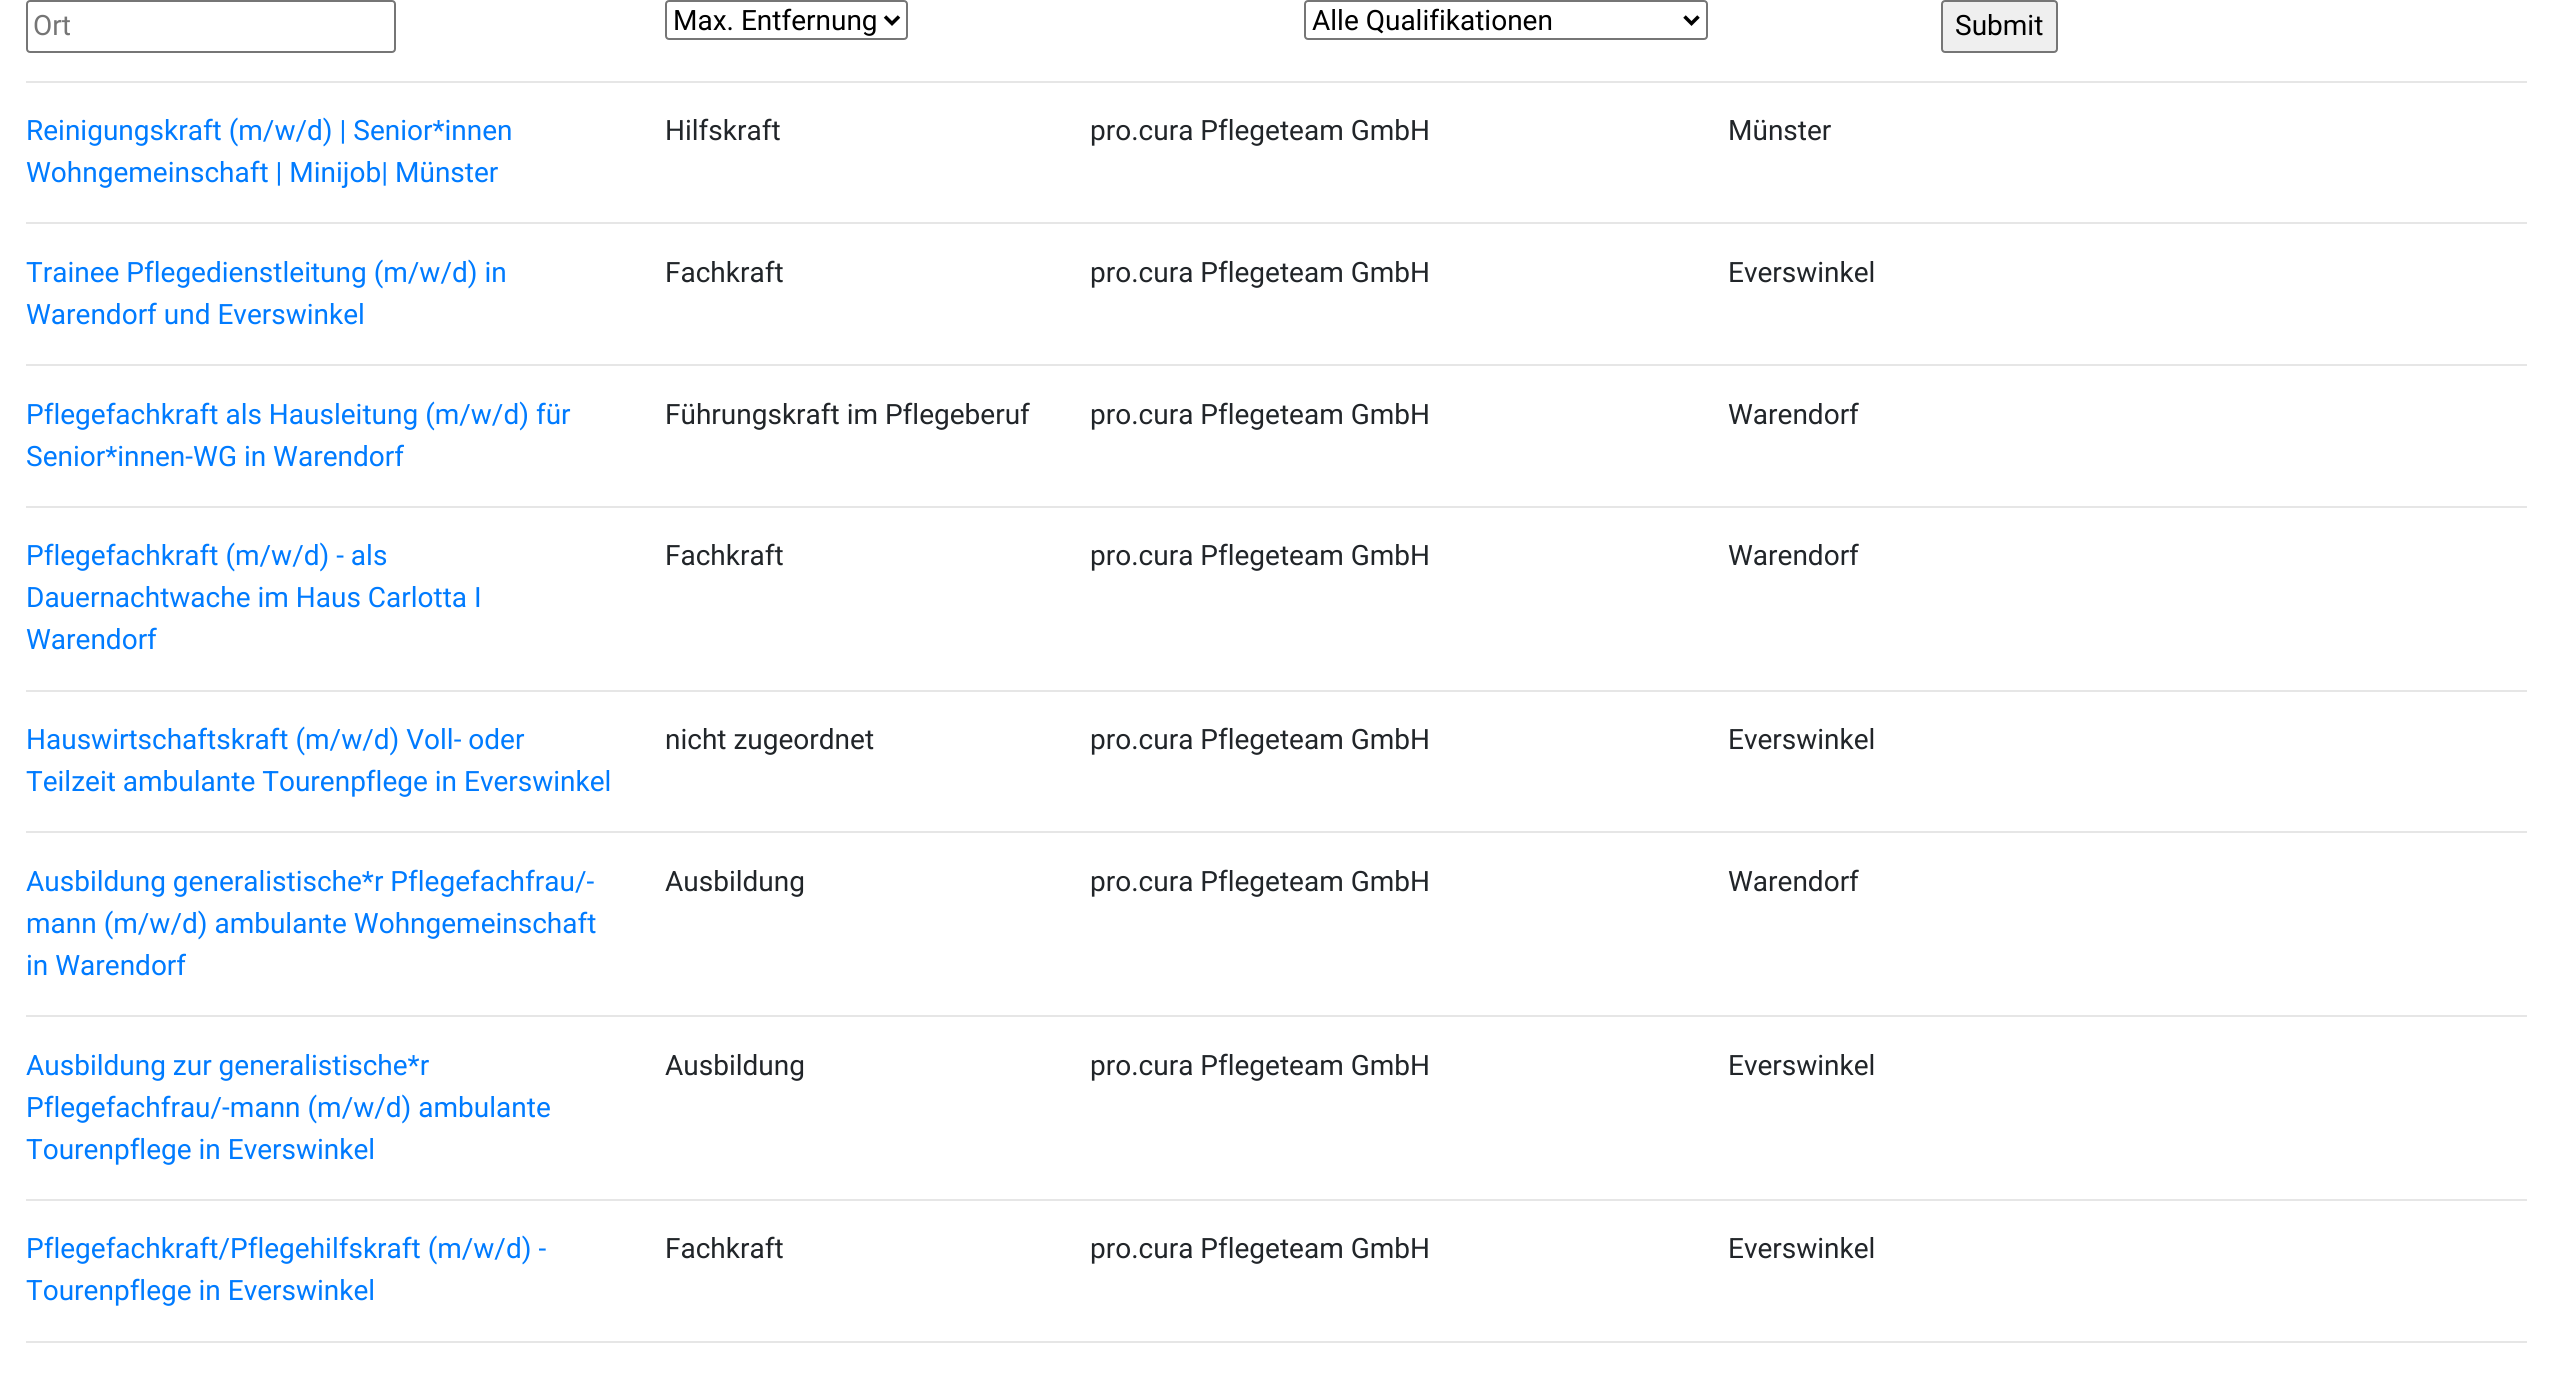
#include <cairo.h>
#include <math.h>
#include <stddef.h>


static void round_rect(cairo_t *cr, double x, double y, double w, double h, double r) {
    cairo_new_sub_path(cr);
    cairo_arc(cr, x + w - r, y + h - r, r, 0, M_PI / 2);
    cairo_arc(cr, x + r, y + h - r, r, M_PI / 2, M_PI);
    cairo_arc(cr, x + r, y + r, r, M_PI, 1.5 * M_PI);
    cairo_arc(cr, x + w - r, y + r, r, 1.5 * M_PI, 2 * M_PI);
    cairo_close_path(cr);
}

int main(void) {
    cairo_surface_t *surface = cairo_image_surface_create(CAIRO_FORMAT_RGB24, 2552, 1398);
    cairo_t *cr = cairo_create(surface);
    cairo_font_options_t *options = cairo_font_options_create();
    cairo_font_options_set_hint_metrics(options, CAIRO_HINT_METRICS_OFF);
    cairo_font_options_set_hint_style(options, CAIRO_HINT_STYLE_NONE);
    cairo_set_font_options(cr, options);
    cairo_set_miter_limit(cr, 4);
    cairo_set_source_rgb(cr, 1, 1, 1);
    cairo_paint(cr);
    round_rect(cr, 27, 1, 368, 51, 3);
    cairo_set_source_rgb(cr, 0.463, 0.463, 0.463);
    cairo_stroke(cr);
    cairo_select_font_face(cr, "Roboto", CAIRO_FONT_SLANT_NORMAL, CAIRO_FONT_WEIGHT_NORMAL);
    cairo_set_font_size(cr, 28);
    cairo_set_source_rgb(cr, 0.459, 0.459, 0.459);
    cairo_move_to(cr, 33, 35);
    cairo_show_text(cr, "Ort");
    round_rect(cr, 666, 1, 241, 38, 3);
    cairo_set_source_rgb(cr, 0.463, 0.463, 0.463);
    cairo_stroke(cr);
    cairo_new_path(cr);
    cairo_move_to(cr, 885, 16.5);
    cairo_line_to(cr, 892, 23.5);
    cairo_line_to(cr, 899, 16.5);
    cairo_set_source_rgb(cr, 0, 0, 0);
    cairo_set_line_width(cr, 3.5);
    cairo_stroke(cr);
    cairo_move_to(cr, 673, 30);
    cairo_show_text(cr, "Max. Entfernung");
    round_rect(cr, 1305, 1, 402, 38, 3);
    cairo_set_source_rgb(cr, 0.463, 0.463, 0.463);
    cairo_set_line_width(cr, 2);
    cairo_stroke(cr);
    cairo_new_path(cr);
    cairo_move_to(cr, 1684.5, 16.5);
    cairo_line_to(cr, 1691.5, 23.5);
    cairo_line_to(cr, 1698.5, 16.5);
    cairo_set_source_rgb(cr, 0, 0, 0);
    cairo_set_line_width(cr, 3.5);
    cairo_stroke(cr);
    cairo_move_to(cr, 1312, 30);
    cairo_show_text(cr, "Alle Qualifikationen");
    cairo_set_source_rgb(cr, 0.937, 0.937, 0.937);
    round_rect(cr, 1942, 1, 115, 51, 3);
    cairo_fill_preserve(cr);
    cairo_set_source_rgb(cr, 0.463, 0.463, 0.463);
    cairo_set_line_width(cr, 2);
    cairo_stroke(cr);
    cairo_set_source_rgb(cr, 0, 0, 0);
    cairo_move_to(cr, 1955, 35);
    cairo_show_text(cr, "Submit");
    cairo_set_source_rgb(cr, 0.902, 0.902, 0.902);
    cairo_rectangle(cr, 26, 81, 2501, 2);
    cairo_fill(cr);
    cairo_set_source_rgb(cr, 0, 0.482, 1);
    cairo_move_to(cr, 26, 140);
    cairo_show_text(cr, "Reinigungskraft (m/w/d) | Senior*innen");
    cairo_move_to(cr, 26, 182);
    cairo_show_text(cr, "Wohngemeinschaft | Minijob| Münster");
    cairo_set_source_rgb(cr, 0.129, 0.145, 0.161);
    cairo_move_to(cr, 665, 140);
    cairo_show_text(cr, "Hilfskraft");
    cairo_move_to(cr, 1090, 140);
    cairo_show_text(cr, "pro.cura Pflegeteam GmbH");
    cairo_move_to(cr, 1728, 140);
    cairo_show_text(cr, "Münster");
    cairo_set_source_rgb(cr, 0.902, 0.902, 0.902);
    cairo_rectangle(cr, 26, 222, 2501, 2);
    cairo_fill(cr);
    cairo_set_source_rgb(cr, 0, 0.482, 1);
    cairo_move_to(cr, 26, 282);
    cairo_show_text(cr, "Trainee Pflegedienstleitung (m/w/d) in");
    cairo_move_to(cr, 26, 324);
    cairo_show_text(cr, "Warendorf und Everswinkel");
    cairo_set_source_rgb(cr, 0.129, 0.145, 0.161);
    cairo_move_to(cr, 665, 282);
    cairo_show_text(cr, "Fachkraft");
    cairo_move_to(cr, 1090, 282);
    cairo_show_text(cr, "pro.cura Pflegeteam GmbH");
    cairo_move_to(cr, 1728, 282);
    cairo_show_text(cr, "Everswinkel");
    cairo_set_source_rgb(cr, 0.902, 0.902, 0.902);
    cairo_rectangle(cr, 26, 364, 2501, 2);
    cairo_fill(cr);
    cairo_set_source_rgb(cr, 0, 0.482, 1);
    cairo_move_to(cr, 26, 424);
    cairo_show_text(cr, "Pflegefachkraft als Hausleitung (m/w/d) für");
    cairo_move_to(cr, 26, 466);
    cairo_show_text(cr, "Senior*innen-WG in Warendorf");
    cairo_set_source_rgb(cr, 0.129, 0.145, 0.161);
    cairo_move_to(cr, 665, 424);
    cairo_show_text(cr, "Führungskraft im Pflegeberuf");
    cairo_move_to(cr, 1090, 424);
    cairo_show_text(cr, "pro.cura Pflegeteam GmbH");
    cairo_move_to(cr, 1728, 424);
    cairo_show_text(cr, "Warendorf");
    cairo_set_source_rgb(cr, 0.902, 0.902, 0.902);
    cairo_rectangle(cr, 26, 506, 2501, 2);
    cairo_fill(cr);
    cairo_set_source_rgb(cr, 0, 0.482, 1);
    cairo_move_to(cr, 26, 565);
    cairo_show_text(cr, "Pflegefachkraft (m/w/d) - als");
    cairo_move_to(cr, 26, 607);
    cairo_show_text(cr, "Dauernachtwache im Haus Carlotta I");
    cairo_move_to(cr, 26, 649);
    cairo_show_text(cr, "Warendorf");
    cairo_set_source_rgb(cr, 0.129, 0.145, 0.161);
    cairo_move_to(cr, 665, 565);
    cairo_show_text(cr, "Fachkraft");
    cairo_move_to(cr, 1090, 565);
    cairo_show_text(cr, "pro.cura Pflegeteam GmbH");
    cairo_move_to(cr, 1728, 565);
    cairo_show_text(cr, "Warendorf");
    cairo_set_source_rgb(cr, 0.902, 0.902, 0.902);
    cairo_rectangle(cr, 26, 690, 2501, 2);
    cairo_fill(cr);
    cairo_set_source_rgb(cr, 0, 0.482, 1);
    cairo_move_to(cr, 26, 749);
    cairo_show_text(cr, "Hauswirtschaftskraft (m/w/d) Voll- oder");
    cairo_move_to(cr, 26, 791);
    cairo_show_text(cr, "Teilzeit ambulante Tourenpflege in Everswinkel");
    cairo_set_source_rgb(cr, 0.129, 0.145, 0.161);
    cairo_move_to(cr, 665, 749);
    cairo_show_text(cr, "nicht zugeordnet");
    cairo_move_to(cr, 1090, 749);
    cairo_show_text(cr, "pro.cura Pflegeteam GmbH");
    cairo_move_to(cr, 1728, 749);
    cairo_show_text(cr, "Everswinkel");
    cairo_set_source_rgb(cr, 0.902, 0.902, 0.902);
    cairo_rectangle(cr, 26, 831, 2501, 2);
    cairo_fill(cr);
    cairo_set_source_rgb(cr, 0, 0.482, 1);
    cairo_move_to(cr, 26, 891);
    cairo_show_text(cr, "Ausbildung generalistische*r Pflegefachfrau/-");
    cairo_move_to(cr, 26, 933);
    cairo_show_text(cr, "mann (m/w/d) ambulante Wohngemeinschaft");
    cairo_move_to(cr, 26, 975);
    cairo_show_text(cr, "in Warendorf");
    cairo_set_source_rgb(cr, 0.129, 0.145, 0.161);
    cairo_move_to(cr, 665, 891);
    cairo_show_text(cr, "Ausbildung");
    cairo_move_to(cr, 1090, 891);
    cairo_show_text(cr, "pro.cura Pflegeteam GmbH");
    cairo_move_to(cr, 1728, 891);
    cairo_show_text(cr, "Warendorf");
    cairo_set_source_rgb(cr, 0.902, 0.902, 0.902);
    cairo_rectangle(cr, 26, 1015, 2501, 2);
    cairo_fill(cr);
    cairo_set_source_rgb(cr, 0, 0.482, 1);
    cairo_move_to(cr, 26, 1075);
    cairo_show_text(cr, "Ausbildung zur generalistische*r");
    cairo_move_to(cr, 26, 1117);
    cairo_show_text(cr, "Pflegefachfrau/-mann (m/w/d) ambulante");
    cairo_move_to(cr, 26, 1159);
    cairo_show_text(cr, "Tourenpflege in Everswinkel");
    cairo_set_source_rgb(cr, 0.129, 0.145, 0.161);
    cairo_move_to(cr, 665, 1075);
    cairo_show_text(cr, "Ausbildung");
    cairo_move_to(cr, 1090, 1075);
    cairo_show_text(cr, "pro.cura Pflegeteam GmbH");
    cairo_move_to(cr, 1728, 1075);
    cairo_show_text(cr, "Everswinkel");
    cairo_set_source_rgb(cr, 0.902, 0.902, 0.902);
    cairo_rectangle(cr, 26, 1199, 2501, 2);
    cairo_fill(cr);
    cairo_set_source_rgb(cr, 0, 0.482, 1);
    cairo_move_to(cr, 26, 1258);
    cairo_show_text(cr, "Pflegefachkraft/Pflegehilfskraft (m/w/d) -");
    cairo_move_to(cr, 26, 1300);
    cairo_show_text(cr, "Tourenpflege in Everswinkel");
    cairo_set_source_rgb(cr, 0.129, 0.145, 0.161);
    cairo_move_to(cr, 665, 1258);
    cairo_show_text(cr, "Fachkraft");
    cairo_move_to(cr, 1090, 1258);
    cairo_show_text(cr, "pro.cura Pflegeteam GmbH");
    cairo_move_to(cr, 1728, 1258);
    cairo_show_text(cr, "Everswinkel");
    cairo_set_source_rgb(cr, 0.902, 0.902, 0.902);
    cairo_rectangle(cr, 26, 1341, 2501, 2);
    cairo_fill(cr);
    cairo_surface_write_to_png(surface, "page.png");
    cairo_font_options_destroy(options);
    cairo_destroy(cr);
    cairo_surface_destroy(surface);
    return 0;
}
